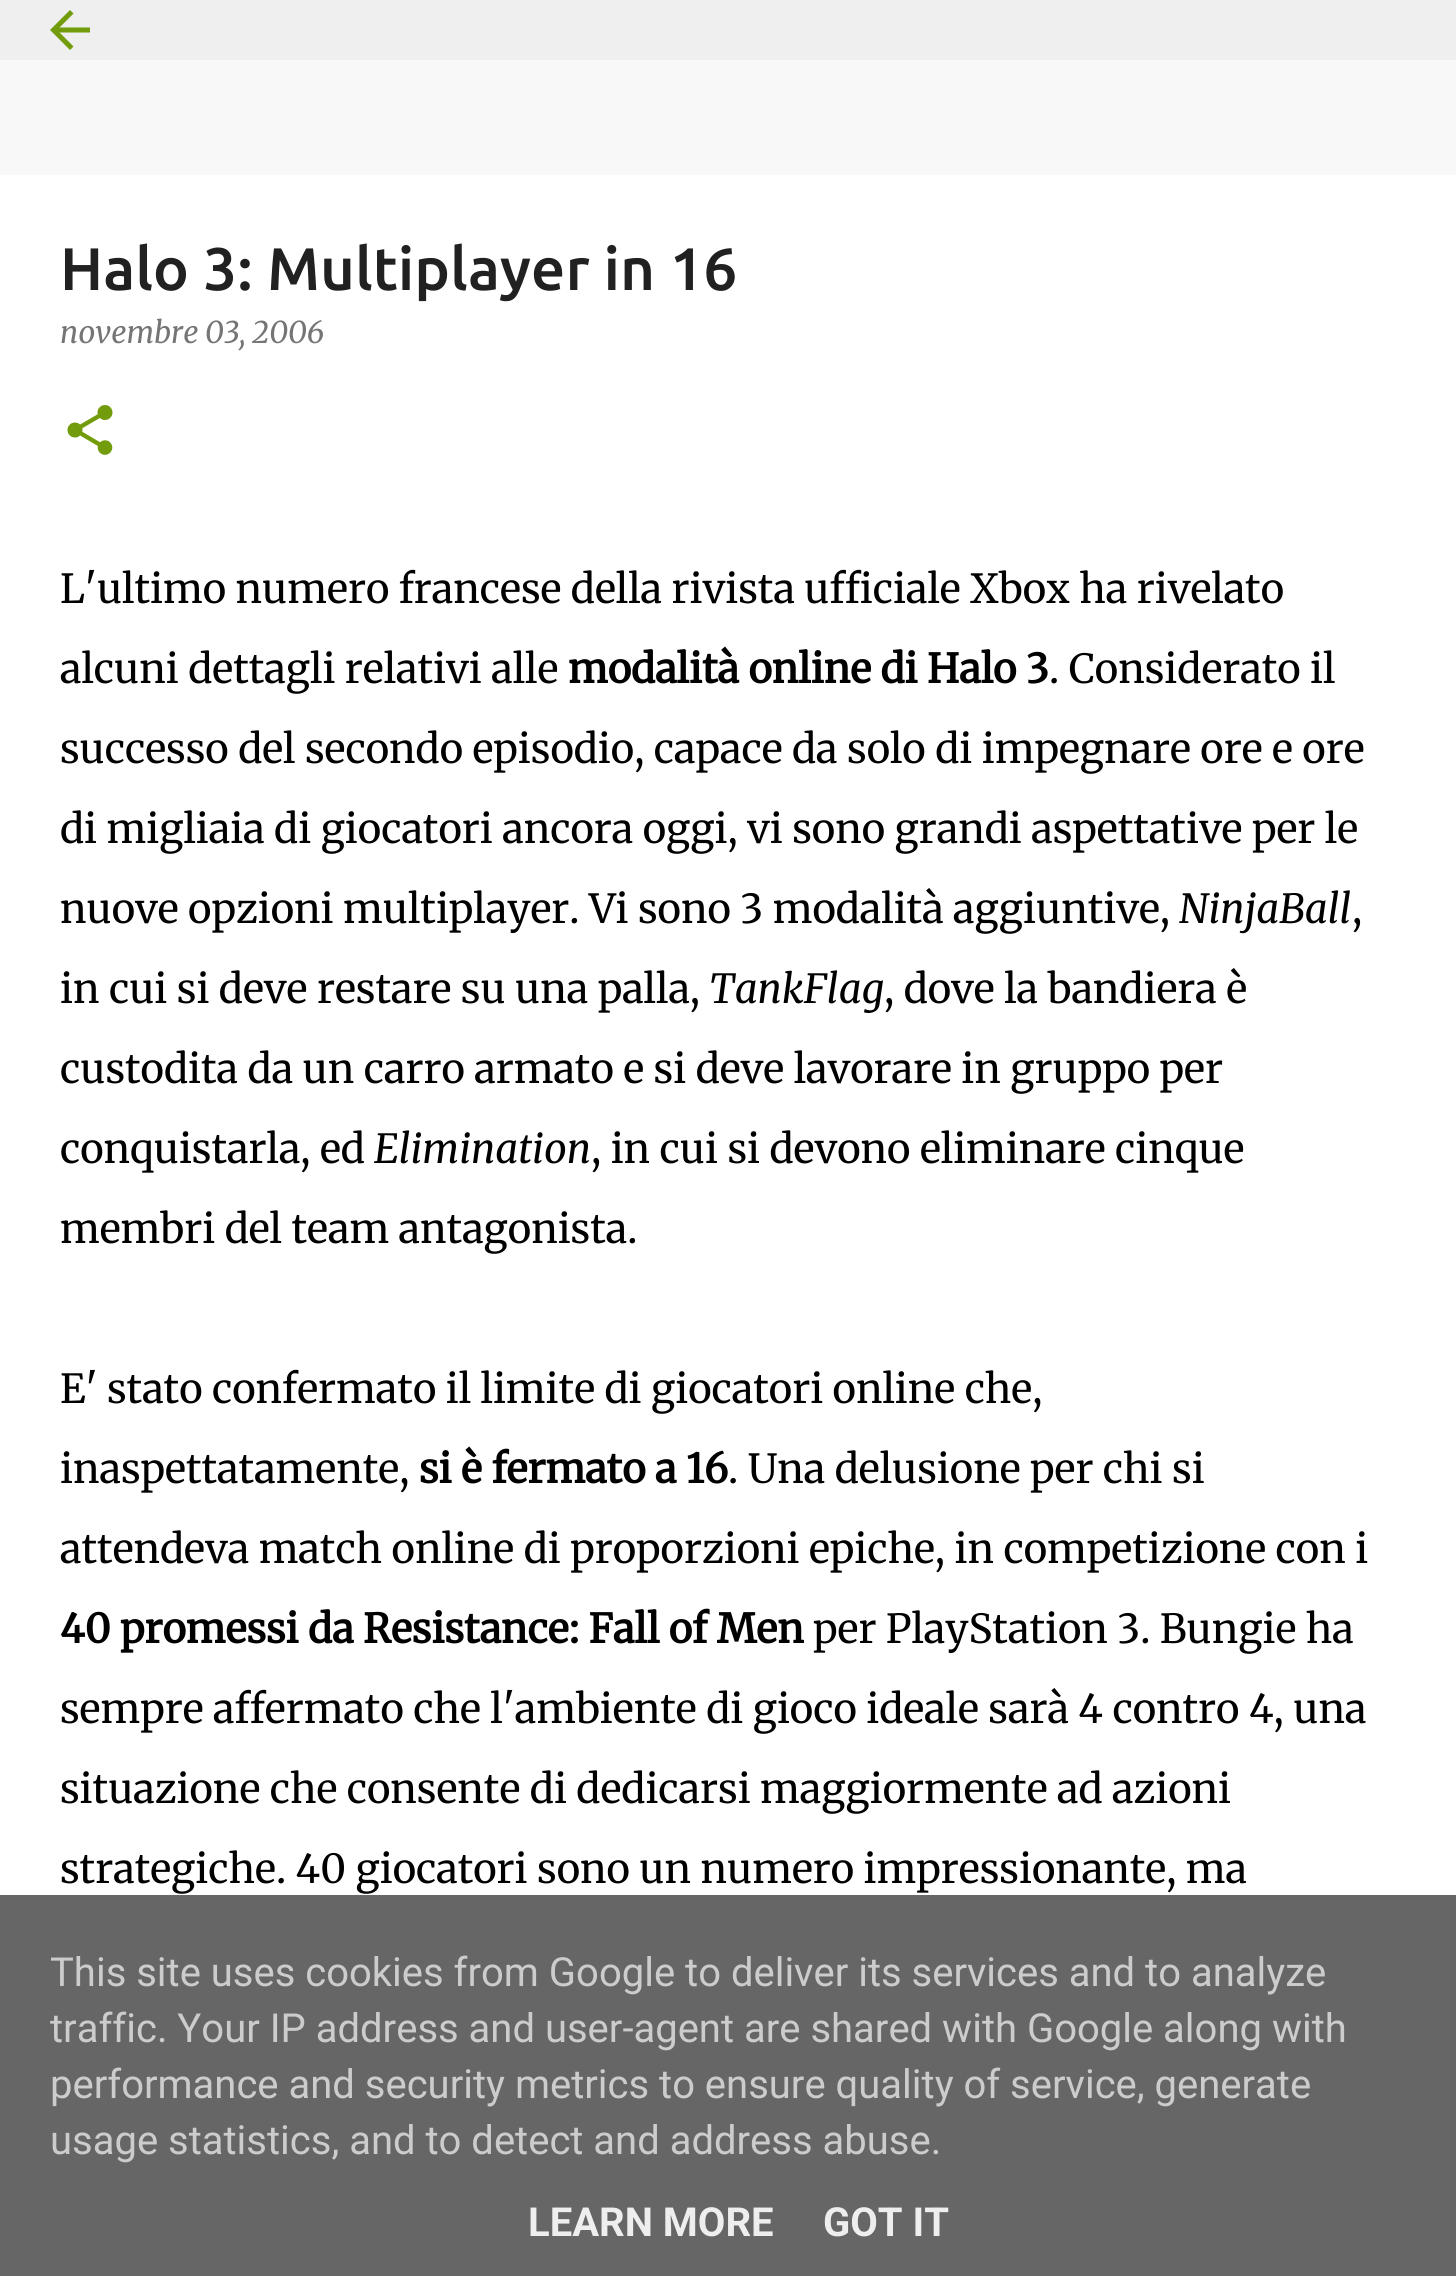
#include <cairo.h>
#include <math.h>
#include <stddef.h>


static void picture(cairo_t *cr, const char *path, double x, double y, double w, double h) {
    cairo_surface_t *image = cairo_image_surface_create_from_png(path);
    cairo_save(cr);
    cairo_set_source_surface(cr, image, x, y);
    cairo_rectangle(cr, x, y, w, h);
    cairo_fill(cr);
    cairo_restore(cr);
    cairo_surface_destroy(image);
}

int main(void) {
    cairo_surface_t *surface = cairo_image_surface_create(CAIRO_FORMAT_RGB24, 1456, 2276);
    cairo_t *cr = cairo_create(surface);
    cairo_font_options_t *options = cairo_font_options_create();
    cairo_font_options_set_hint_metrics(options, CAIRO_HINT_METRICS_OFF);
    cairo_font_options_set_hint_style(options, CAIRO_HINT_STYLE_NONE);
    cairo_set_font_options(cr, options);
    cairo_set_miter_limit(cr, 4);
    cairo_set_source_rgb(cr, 0.969, 0.969, 0.969);
    cairo_paint(cr);
    cairo_set_source_rgb(cr, 0.937, 0.937, 0.937);
    cairo_rectangle(cr, 0, 0, 1456, 60);
    cairo_fill(cr);
    picture(cr, "img1.png", 50, 10, 40, 40);
    cairo_set_source_rgb(cr, 1, 1, 1);
    cairo_rectangle(cr, 0, 175, 1456, 1720);
    cairo_fill(cr);
    cairo_select_font_face(cr, "Ubuntu Medium", CAIRO_FONT_SLANT_NORMAL, CAIRO_FONT_WEIGHT_NORMAL);
    cairo_set_font_size(cr, 60);
    cairo_set_source_rgb(cr, 0.129, 0.129, 0.129);
    cairo_move_to(cr, 60, 290);
    cairo_show_text(cr, "Halo 3: Multiplayer in 16");
    cairo_select_font_face(cr, "Merriweather Light", CAIRO_FONT_SLANT_ITALIC, CAIRO_FONT_WEIGHT_NORMAL);
    cairo_set_font_size(cr, 30);
    cairo_set_source_rgb(cr, 0.459, 0.459, 0.459);
    cairo_move_to(cr, 60, 343);
    cairo_show_text(cr, "novembre 03, 2006");
    picture(cr, "img2.png", 67, 405, 46, 50);
    cairo_select_font_face(cr, "Merriweather Light", CAIRO_FONT_SLANT_NORMAL, CAIRO_FONT_WEIGHT_NORMAL);
    cairo_set_font_size(cr, 40);
    cairo_set_source_rgb(cr, 0, 0, 0);
    cairo_move_to(cr, 60, 603);
    cairo_show_text(cr, "L'ultimo numero francese della rivista ufficiale Xbox ha rivelato");
    cairo_move_to(cr, 60, 683);
    cairo_show_text(cr, "alcuni dettagli relativi alle");
    cairo_select_font_face(cr, "Merriweather", CAIRO_FONT_SLANT_NORMAL, CAIRO_FONT_WEIGHT_BOLD);
    cairo_move_to(cr, 568, 683);
    cairo_show_text(cr, "modalità online di Halo 3");
    cairo_select_font_face(cr, "Merriweather Light", CAIRO_FONT_SLANT_NORMAL, CAIRO_FONT_WEIGHT_NORMAL);
    cairo_move_to(cr, 1049, 683);
    cairo_show_text(cr, ". Considerato il");
    cairo_move_to(cr, 60, 763);
    cairo_show_text(cr, "successo del secondo episodio, capace da solo di impegnare ore e ore");
    cairo_move_to(cr, 60, 843);
    cairo_show_text(cr, "di migliaia di giocatori ancora oggi, vi sono grandi aspettative per le");
    cairo_move_to(cr, 60, 923);
    cairo_show_text(cr, "nuove opzioni multiplayer. Vi sono 3 modalità aggiuntive,");
    cairo_select_font_face(cr, "Merriweather Light", CAIRO_FONT_SLANT_ITALIC, CAIRO_FONT_WEIGHT_NORMAL);
    cairo_move_to(cr, 1179, 923);
    cairo_show_text(cr, "NinjaBall");
    cairo_select_font_face(cr, "Merriweather Light", CAIRO_FONT_SLANT_NORMAL, CAIRO_FONT_WEIGHT_NORMAL);
    cairo_move_to(cr, 1352, 923);
    cairo_show_text(cr, ",");
    cairo_move_to(cr, 60, 1003);
    cairo_show_text(cr, "in cui si deve restare su una palla,");
    cairo_select_font_face(cr, "Merriweather Light", CAIRO_FONT_SLANT_ITALIC, CAIRO_FONT_WEIGHT_NORMAL);
    cairo_move_to(cr, 709, 1003);
    cairo_show_text(cr, "TankFlag");
    cairo_select_font_face(cr, "Merriweather Light", CAIRO_FONT_SLANT_NORMAL, CAIRO_FONT_WEIGHT_NORMAL);
    cairo_move_to(cr, 884, 1003);
    cairo_show_text(cr, ", dove la bandiera è");
    cairo_move_to(cr, 60, 1083);
    cairo_show_text(cr, "custodita da un carro armato e si deve lavorare in gruppo per");
    cairo_move_to(cr, 60, 1163);
    cairo_show_text(cr, "conquistarla, ed");
    cairo_select_font_face(cr, "Merriweather Light", CAIRO_FONT_SLANT_ITALIC, CAIRO_FONT_WEIGHT_NORMAL);
    cairo_move_to(cr, 374, 1163);
    cairo_show_text(cr, "Elimination");
    cairo_select_font_face(cr, "Merriweather Light", CAIRO_FONT_SLANT_NORMAL, CAIRO_FONT_WEIGHT_NORMAL);
    cairo_move_to(cr, 591, 1163);
    cairo_show_text(cr, ", in cui si devono eliminare cinque");
    cairo_move_to(cr, 60, 1243);
    cairo_show_text(cr, "membri del team antagonista.");
    cairo_move_to(cr, 60, 1403);
    cairo_show_text(cr, "E' stato confermato il limite di giocatori online che,");
    cairo_move_to(cr, 60, 1483);
    cairo_show_text(cr, "inaspettatamente,");
    cairo_select_font_face(cr, "Merriweather", CAIRO_FONT_SLANT_NORMAL, CAIRO_FONT_WEIGHT_BOLD);
    cairo_move_to(cr, 419, 1483);
    cairo_show_text(cr, "si è fermato a 16");
    cairo_select_font_face(cr, "Merriweather Light", CAIRO_FONT_SLANT_NORMAL, CAIRO_FONT_WEIGHT_NORMAL);
    cairo_move_to(cr, 728, 1483);
    cairo_show_text(cr, ". Una delusione per chi si");
    cairo_move_to(cr, 60, 1563);
    cairo_show_text(cr, "attendeva match online di proporzioni epiche, in competizione con i");
    cairo_select_font_face(cr, "Merriweather", CAIRO_FONT_SLANT_NORMAL, CAIRO_FONT_WEIGHT_BOLD);
    cairo_move_to(cr, 60, 1643);
    cairo_show_text(cr, "40 promessi da Resistance: Fall of Men");
    cairo_select_font_face(cr, "Merriweather Light", CAIRO_FONT_SLANT_NORMAL, CAIRO_FONT_WEIGHT_NORMAL);
    cairo_move_to(cr, 813, 1643);
    cairo_show_text(cr, "per PlayStation 3. Bungie ha");
    cairo_move_to(cr, 60, 1723);
    cairo_show_text(cr, "sempre affermato che l'ambiente di gioco ideale sarà 4 contro 4, una");
    cairo_move_to(cr, 60, 1803);
    cairo_show_text(cr, "situazione che consente di dedicarsi maggiormente ad azioni");
    cairo_move_to(cr, 60, 1883);
    cairo_show_text(cr, "strategiche. 40 giocatori sono un numero impressionante, ma");
    cairo_set_source_rgb(cr, 0.4, 0.4, 0.4);
    cairo_rectangle(cr, 0, 1895, 1456, 381);
    cairo_fill(cr);
    cairo_select_font_face(cr, "Roboto", CAIRO_FONT_SLANT_NORMAL, CAIRO_FONT_WEIGHT_NORMAL);
    cairo_set_source_rgb(cr, 0.8, 0.8, 0.8);
    cairo_move_to(cr, 50, 1986);
    cairo_show_text(cr, "This site uses cookies from Google to deliver its services and to analyze");
    cairo_move_to(cr, 50, 2042);
    cairo_show_text(cr, "traffic. Your IP address and user-agent are shared with Google along with");
    cairo_move_to(cr, 50, 2098);
    cairo_show_text(cr, "performance and security metrics to ensure quality of service, generate");
    cairo_move_to(cr, 50, 2154);
    cairo_show_text(cr, "usage statistics, and to detect and address abuse.");
    cairo_select_font_face(cr, "Roboto", CAIRO_FONT_SLANT_NORMAL, CAIRO_FONT_WEIGHT_BOLD);
    cairo_set_source_rgb(cr, 0.933, 0.933, 0.933);
    cairo_move_to(cr, 528, 2236);
    cairo_show_text(cr, "LEARN MORE");
    cairo_move_to(cr, 823, 2236);
    cairo_show_text(cr, "GOT IT");
    cairo_surface_write_to_png(surface, "page.png");
    cairo_font_options_destroy(options);
    cairo_destroy(cr);
    cairo_surface_destroy(surface);
    return 0;
}
